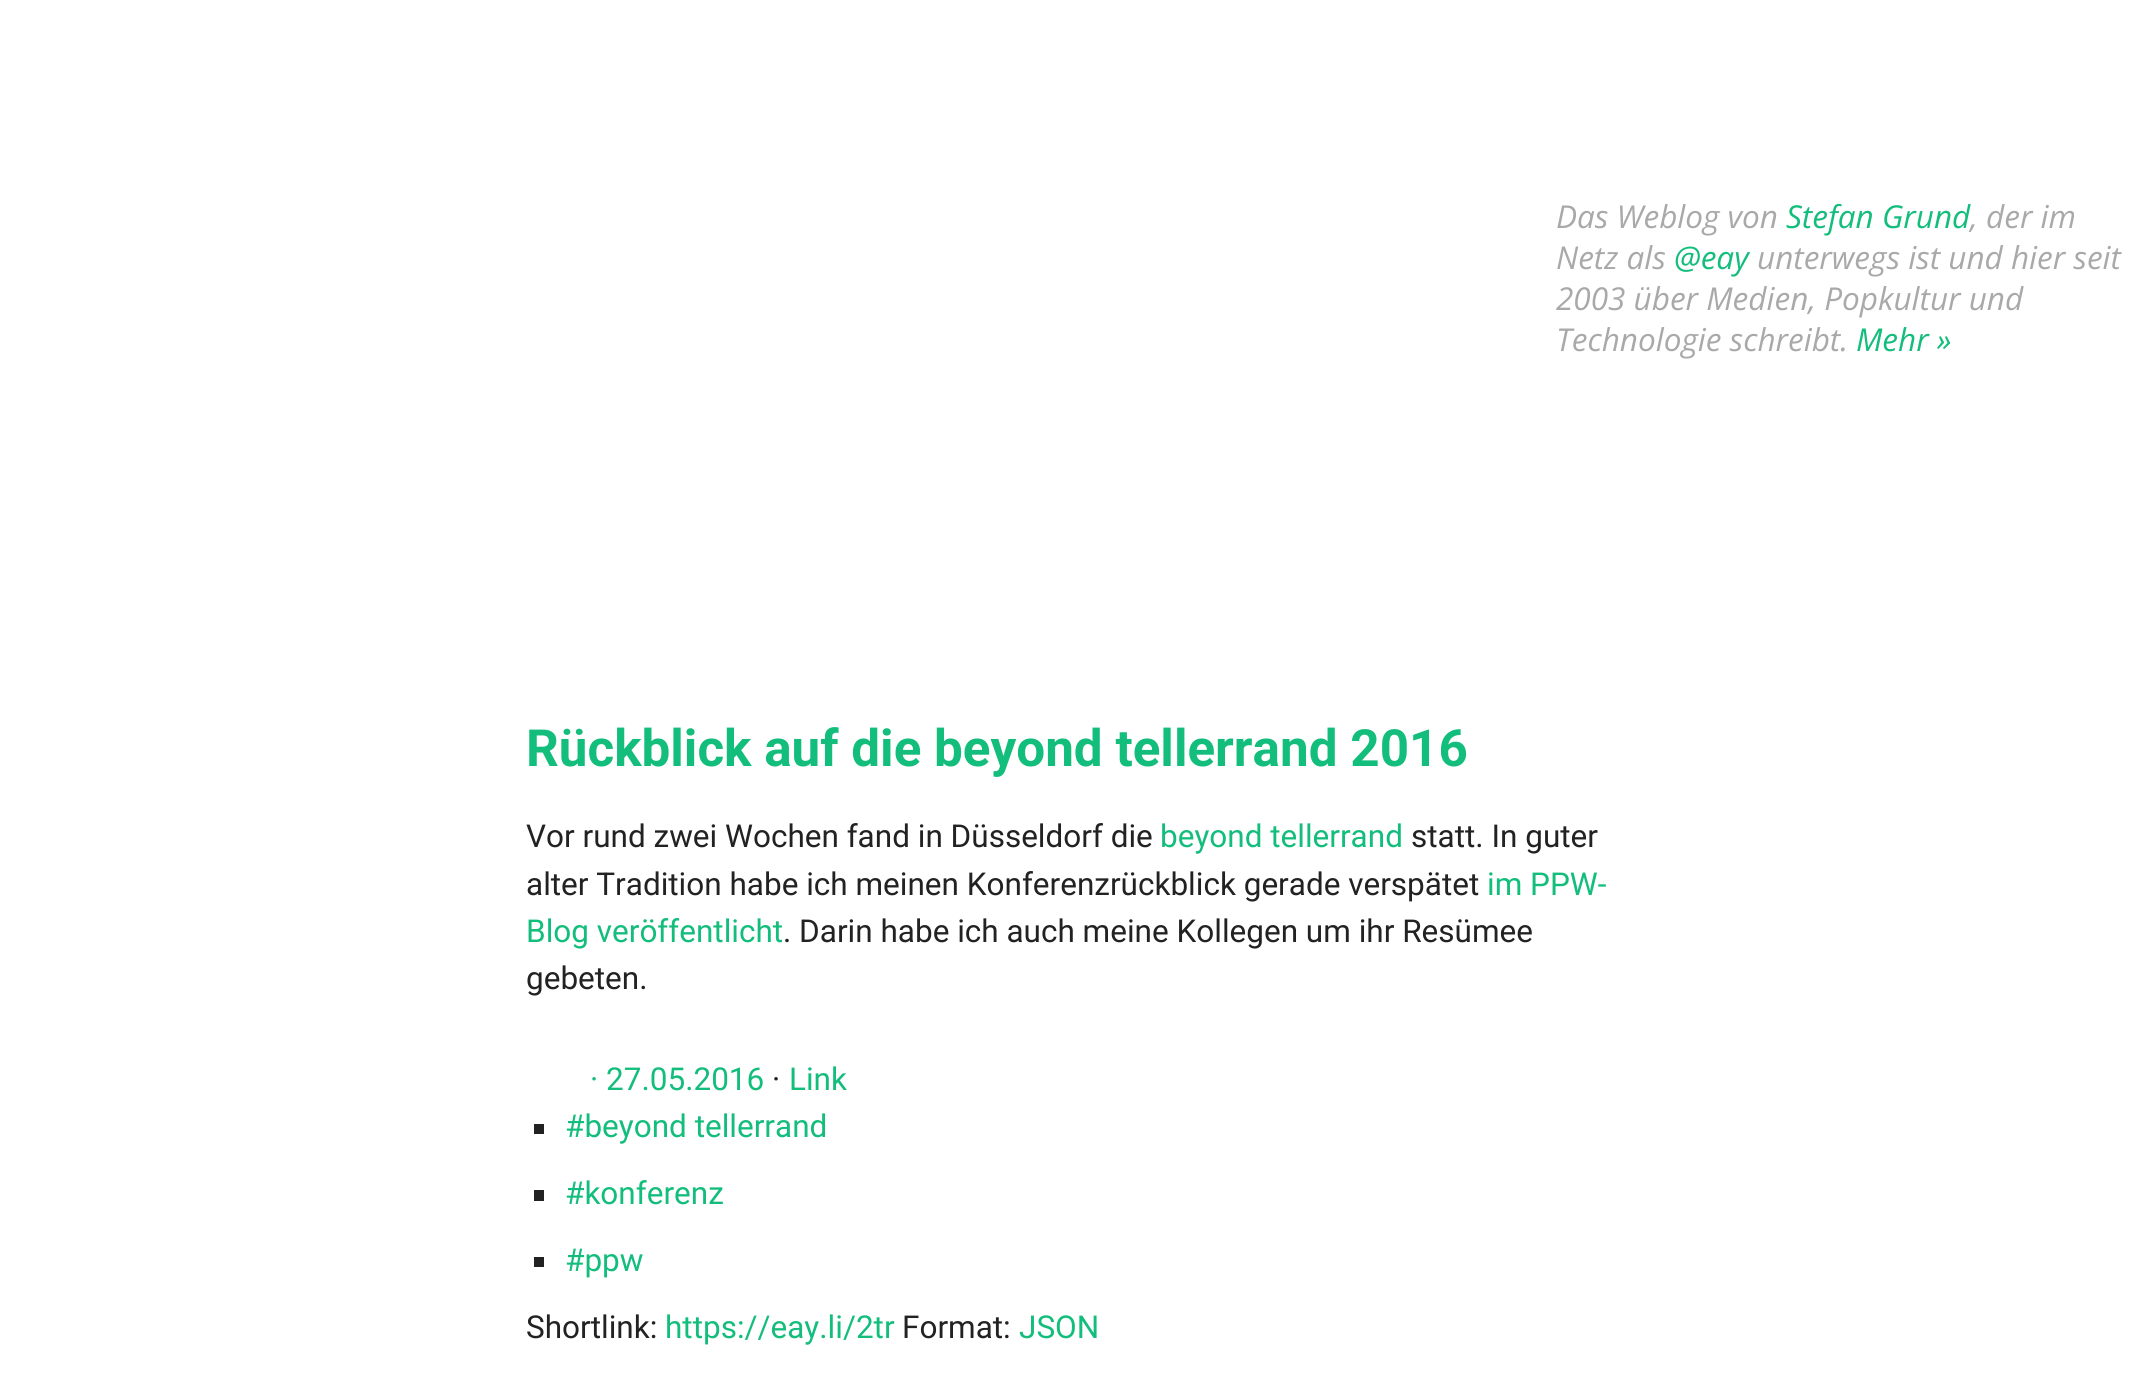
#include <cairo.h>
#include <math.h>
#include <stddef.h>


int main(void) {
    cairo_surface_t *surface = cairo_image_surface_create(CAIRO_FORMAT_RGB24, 2154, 1400);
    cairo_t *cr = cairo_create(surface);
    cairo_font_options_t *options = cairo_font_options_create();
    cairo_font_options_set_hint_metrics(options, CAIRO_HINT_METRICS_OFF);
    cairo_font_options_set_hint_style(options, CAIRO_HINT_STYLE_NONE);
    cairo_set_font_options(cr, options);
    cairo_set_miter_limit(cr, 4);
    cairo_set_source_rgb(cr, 1, 1, 1);
    cairo_paint(cr);
    cairo_select_font_face(cr, "Open Sans", CAIRO_FONT_SLANT_ITALIC, CAIRO_FONT_WEIGHT_NORMAL);
    cairo_set_font_size(cr, 31.5);
    cairo_set_source_rgb(cr, 0.663, 0.663, 0.663);
    cairo_move_to(cr, 1556, 228);
    cairo_show_text(cr, "Das Weblog von");
    cairo_set_source_rgb(cr, 0.078, 0.741, 0.482);
    cairo_move_to(cr, 1786, 228);
    cairo_show_text(cr, "Stefan Grund");
    cairo_set_source_rgb(cr, 0.663, 0.663, 0.663);
    cairo_move_to(cr, 1970, 228);
    cairo_show_text(cr, ", der im");
    cairo_move_to(cr, 1556, 269);
    cairo_show_text(cr, "Netz als");
    cairo_set_source_rgb(cr, 0.078, 0.741, 0.482);
    cairo_move_to(cr, 1674, 269);
    cairo_show_text(cr, "@eay");
    cairo_set_source_rgb(cr, 0.663, 0.663, 0.663);
    cairo_move_to(cr, 1757, 269);
    cairo_show_text(cr, "unterwegs ist und hier seit");
    cairo_move_to(cr, 1556, 310);
    cairo_show_text(cr, "2003 über Medien, Popkultur und");
    cairo_move_to(cr, 1556, 351);
    cairo_show_text(cr, "Technologie schreibt.");
    cairo_set_source_rgb(cr, 0.078, 0.741, 0.482);
    cairo_move_to(cr, 1856, 351);
    cairo_show_text(cr, "Mehr »");
    cairo_select_font_face(cr, "Roboto", CAIRO_FONT_SLANT_NORMAL, CAIRO_FONT_WEIGHT_BOLD);
    cairo_set_font_size(cr, 51.2);
    cairo_move_to(cr, 526, 766);
    cairo_show_text(cr, "Rückblick auf die beyond tellerrand 2016");
    cairo_select_font_face(cr, "Roboto", CAIRO_FONT_SLANT_NORMAL, CAIRO_FONT_WEIGHT_NORMAL);
    cairo_set_font_size(cr, 31.5);
    cairo_set_source_rgb(cr, 0.133, 0.133, 0.133);
    cairo_move_to(cr, 526, 847);
    cairo_show_text(cr, "Vor rund zwei Wochen fand in Düsseldorf die");
    cairo_set_source_rgb(cr, 0.078, 0.741, 0.482);
    cairo_move_to(cr, 1160, 847);
    cairo_show_text(cr, "beyond tellerrand");
    cairo_set_source_rgb(cr, 0.133, 0.133, 0.133);
    cairo_move_to(cr, 1411, 847);
    cairo_show_text(cr, "statt. In guter");
    cairo_move_to(cr, 526, 895);
    cairo_show_text(cr, "alter Tradition habe ich meinen Konferenzrückblick gerade verspätet");
    cairo_set_source_rgb(cr, 0.078, 0.741, 0.482);
    cairo_move_to(cr, 1487, 895);
    cairo_show_text(cr, "im PPW-");
    cairo_move_to(cr, 526, 942);
    cairo_show_text(cr, "Blog veröffentlicht");
    cairo_set_source_rgb(cr, 0.133, 0.133, 0.133);
    cairo_move_to(cr, 783, 942);
    cairo_show_text(cr, ". Darin habe ich auch meine Kollegen um ihr Resümee");
    cairo_move_to(cr, 526, 989);
    cairo_show_text(cr, "gebeten.");
    cairo_set_source_rgb(cr, 0.078, 0.741, 0.482);
    cairo_move_to(cr, 590, 1090);
    cairo_show_text(cr, "· 27.05.2016");
    cairo_set_source_rgb(cr, 0.133, 0.133, 0.133);
    cairo_move_to(cr, 772, 1090);
    cairo_show_text(cr, "·");
    cairo_set_source_rgb(cr, 0.078, 0.741, 0.482);
    cairo_move_to(cr, 789, 1090);
    cairo_show_text(cr, "Link");
    cairo_set_source_rgb(cr, 0.133, 0.133, 0.133);
    cairo_rectangle(cr, 534, 1124, 10, 10);
    cairo_fill(cr);
    cairo_set_source_rgb(cr, 0.078, 0.741, 0.482);
    cairo_move_to(cr, 565, 1137);
    cairo_show_text(cr, "#beyond tellerrand");
    cairo_set_source_rgb(cr, 0.133, 0.133, 0.133);
    cairo_rectangle(cr, 534, 1190, 10, 11);
    cairo_fill(cr);
    cairo_set_source_rgb(cr, 0.078, 0.741, 0.482);
    cairo_move_to(cr, 565, 1204);
    cairo_show_text(cr, "#konferenz");
    cairo_set_source_rgb(cr, 0.133, 0.133, 0.133);
    cairo_rectangle(cr, 534, 1257, 10, 10);
    cairo_fill(cr);
    cairo_set_source_rgb(cr, 0.078, 0.741, 0.482);
    cairo_move_to(cr, 565, 1271);
    cairo_show_text(cr, "#ppw");
    cairo_set_source_rgb(cr, 0.133, 0.133, 0.133);
    cairo_move_to(cr, 526, 1338);
    cairo_show_text(cr, "Shortlink:");
    cairo_set_source_rgb(cr, 0.078, 0.741, 0.482);
    cairo_move_to(cr, 665, 1338);
    cairo_show_text(cr, "https://eay.li/2tr");
    cairo_set_source_rgb(cr, 0.133, 0.133, 0.133);
    cairo_move_to(cr, 902, 1338);
    cairo_show_text(cr, "Format:");
    cairo_set_source_rgb(cr, 0.078, 0.741, 0.482);
    cairo_move_to(cr, 1019, 1338);
    cairo_show_text(cr, "JSON");
    cairo_surface_write_to_png(surface, "page.png");
    cairo_font_options_destroy(options);
    cairo_destroy(cr);
    cairo_surface_destroy(surface);
    return 0;
}
